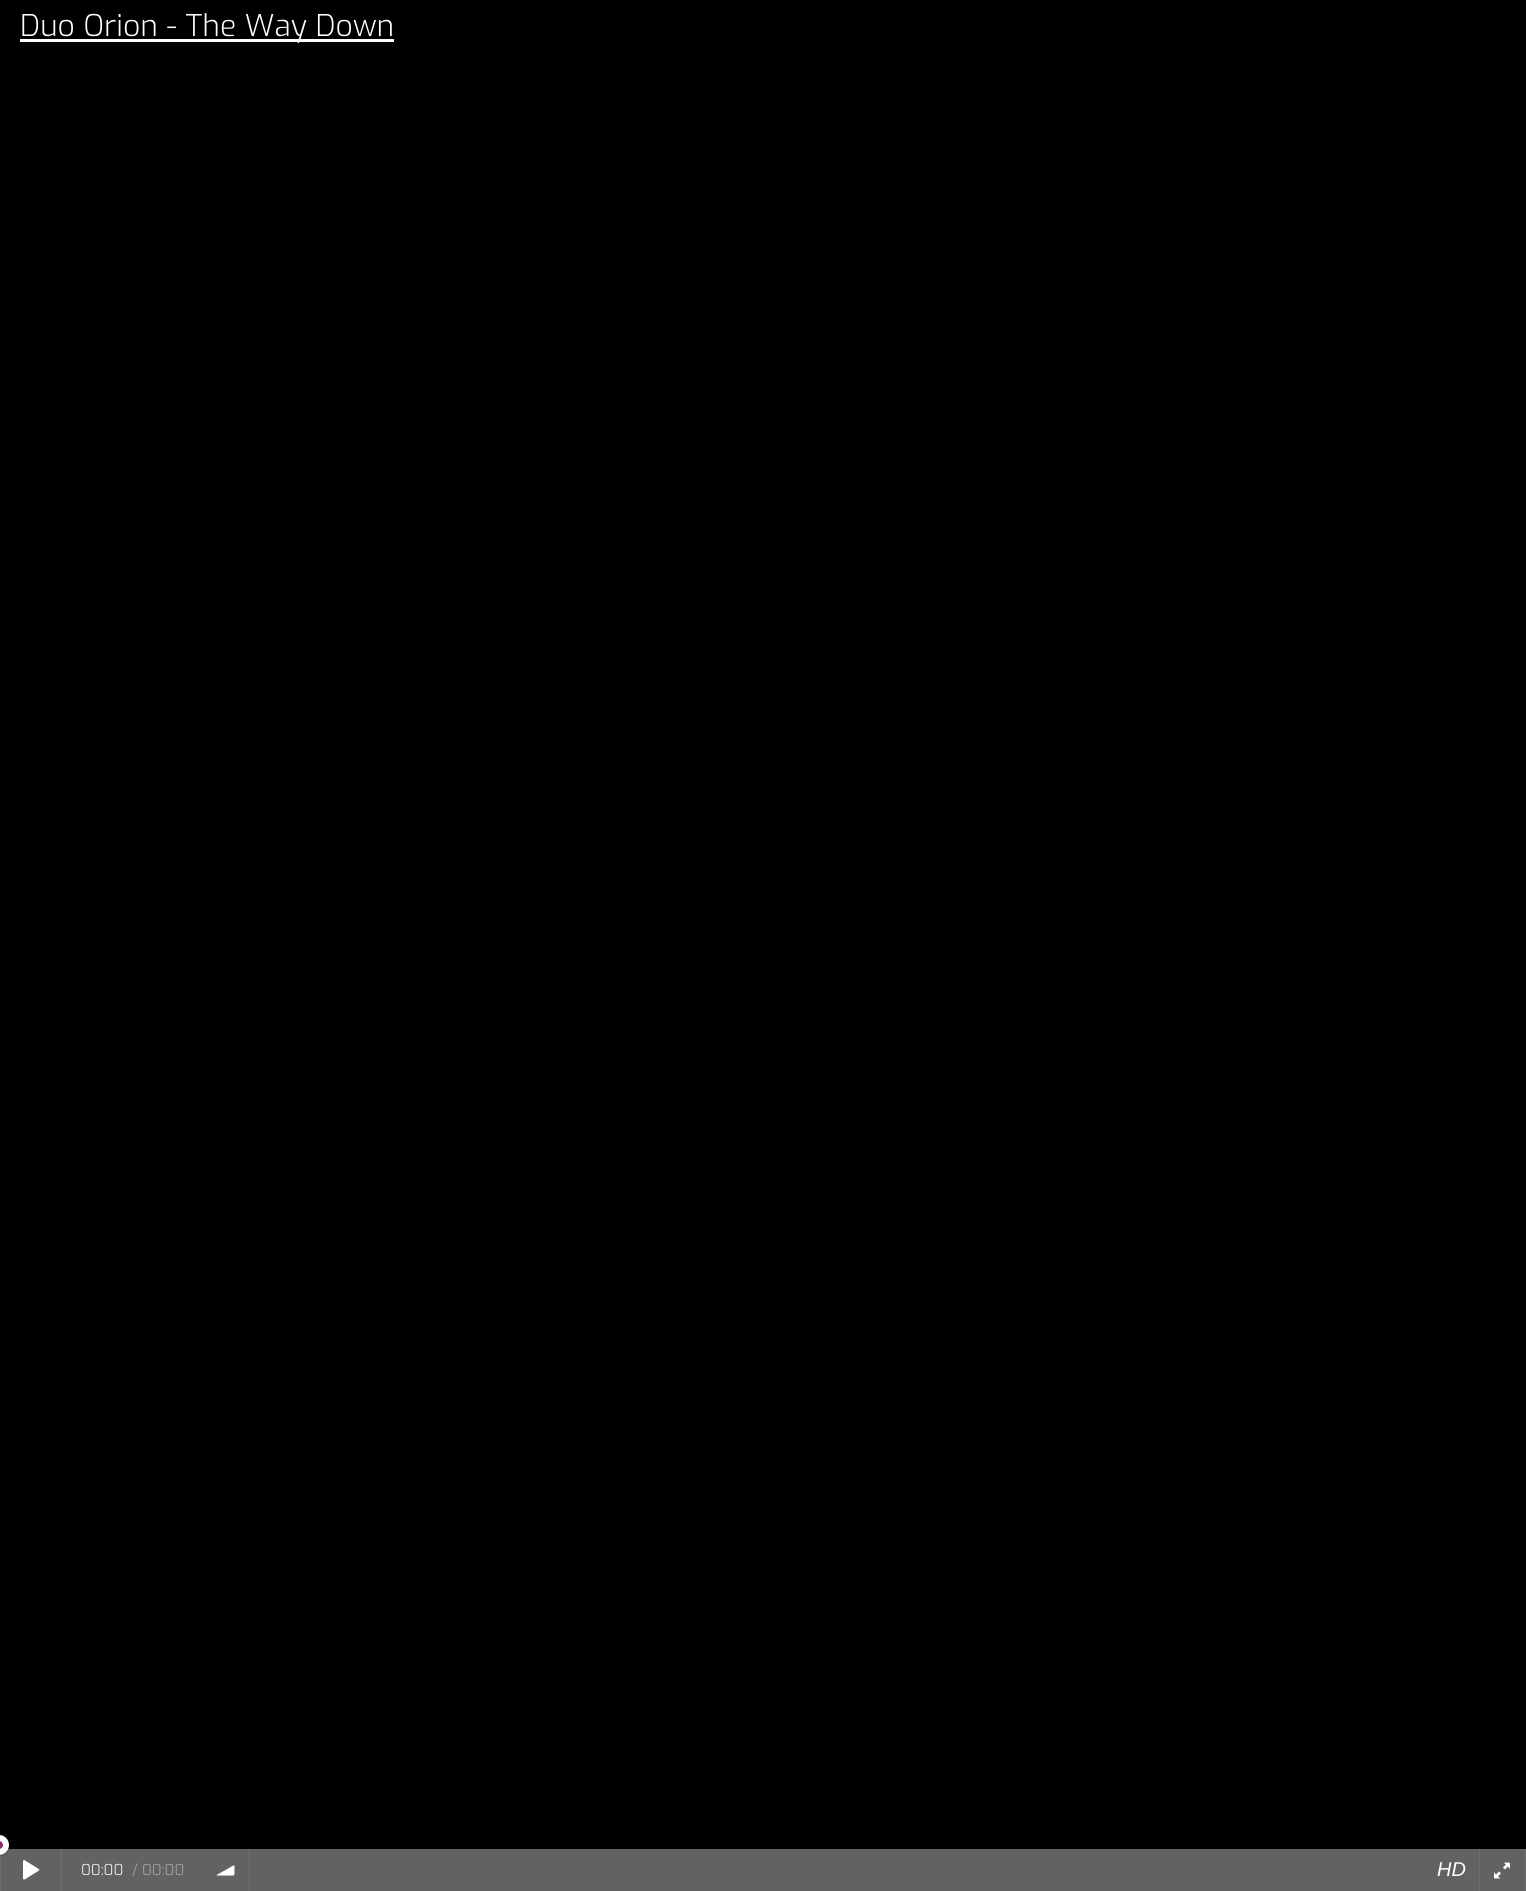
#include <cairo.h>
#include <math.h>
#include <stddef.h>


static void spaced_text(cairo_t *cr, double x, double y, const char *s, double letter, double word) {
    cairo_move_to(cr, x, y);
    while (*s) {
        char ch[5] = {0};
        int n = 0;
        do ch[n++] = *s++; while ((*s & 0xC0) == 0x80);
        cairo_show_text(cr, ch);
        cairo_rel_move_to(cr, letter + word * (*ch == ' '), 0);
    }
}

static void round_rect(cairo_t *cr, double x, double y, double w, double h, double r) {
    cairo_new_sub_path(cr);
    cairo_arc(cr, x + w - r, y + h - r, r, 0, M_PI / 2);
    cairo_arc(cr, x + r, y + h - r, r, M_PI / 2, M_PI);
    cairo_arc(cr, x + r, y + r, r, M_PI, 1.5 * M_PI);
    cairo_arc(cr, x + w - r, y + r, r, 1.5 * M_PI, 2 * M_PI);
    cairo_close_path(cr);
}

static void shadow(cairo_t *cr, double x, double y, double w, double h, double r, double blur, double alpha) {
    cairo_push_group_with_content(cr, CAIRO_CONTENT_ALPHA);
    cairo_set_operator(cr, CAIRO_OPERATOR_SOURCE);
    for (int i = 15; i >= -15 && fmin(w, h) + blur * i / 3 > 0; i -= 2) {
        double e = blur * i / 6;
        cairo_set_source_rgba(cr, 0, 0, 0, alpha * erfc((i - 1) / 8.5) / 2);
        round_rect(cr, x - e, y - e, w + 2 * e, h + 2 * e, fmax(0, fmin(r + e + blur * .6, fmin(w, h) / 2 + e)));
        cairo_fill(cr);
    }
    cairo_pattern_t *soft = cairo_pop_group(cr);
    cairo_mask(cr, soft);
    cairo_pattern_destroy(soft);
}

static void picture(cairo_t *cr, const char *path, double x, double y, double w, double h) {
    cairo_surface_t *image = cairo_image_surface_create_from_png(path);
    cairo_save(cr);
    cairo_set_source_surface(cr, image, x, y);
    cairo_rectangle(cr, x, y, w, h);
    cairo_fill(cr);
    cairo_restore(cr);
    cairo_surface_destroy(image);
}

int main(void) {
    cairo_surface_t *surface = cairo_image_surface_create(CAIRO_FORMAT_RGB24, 1526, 1891);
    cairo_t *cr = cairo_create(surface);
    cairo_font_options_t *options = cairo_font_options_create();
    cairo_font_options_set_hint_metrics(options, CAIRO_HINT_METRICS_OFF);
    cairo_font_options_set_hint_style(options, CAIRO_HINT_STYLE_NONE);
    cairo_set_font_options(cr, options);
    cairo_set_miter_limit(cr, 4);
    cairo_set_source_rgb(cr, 0, 0, 0);
    cairo_paint(cr);
    cairo_set_source_rgb(cr, 1, 1, 1);
    cairo_rectangle(cr, 20, 39, 374, 3);
    cairo_fill(cr);
    cairo_select_font_face(cr, "Exo Light", CAIRO_FONT_SLANT_NORMAL, CAIRO_FONT_WEIGHT_NORMAL);
    cairo_set_font_size(cr, 30);
    spaced_text(cr, 20, 36, "Duo Orion - The Way Down", 0, 0.5);
    cairo_set_source_rgb(cr, 0.384, 0.384, 0.384);
    cairo_rectangle(cr, 1, 1849, 1524, 42);
    cairo_fill(cr);
    cairo_set_source_rgb(cr, 0.435, 0.435, 0.435);
    cairo_rectangle(cr, 0, 1849, 1, 42);
    cairo_fill(cr);
    cairo_set_source_rgb(cr, 0, 0, 0);
    shadow(cr, -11, 1836, 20, 20, 10, 0.5, 0.3);
    cairo_set_source_rgb(cr, 1, 1, 1);
    round_rect(cr, -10, 1835, 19, 20, 10);
    cairo_fill(cr);
    cairo_set_source_rgb(cr, 0.498, 0.196, 0.388);
    round_rect(cr, -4, 1841, 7, 8, 4);
    cairo_fill(cr);
    cairo_set_source_rgb(cr, 0.435, 0.435, 0.435);
    cairo_rectangle(cr, 61, 1849, 1, 42);
    cairo_fill(cr);
    picture(cr, "img1.png", 23, 1860, 17, 20);
    cairo_set_font_size(cr, 15);
    cairo_set_source_rgb(cr, 1, 1, 1);
    cairo_move_to(cr, 81, 1875);
    cairo_show_text(cr, "00:00");
    cairo_set_source_rgb(cr, 0.667, 0.667, 0.667);
    cairo_move_to(cr, 132, 1875);
    cairo_show_text(cr, "/");
    cairo_move_to(cr, 142, 1875);
    cairo_show_text(cr, "00:00");
    cairo_set_source_rgb(cr, 0.435, 0.435, 0.435);
    cairo_rectangle(cr, 249, 1849, 1, 42);
    cairo_fill(cr);
    picture(cr, "img2.png", 216, 1865, 19, 11);
    cairo_select_font_face(cr, "Liberation Sans", CAIRO_FONT_SLANT_ITALIC, CAIRO_FONT_WEIGHT_NORMAL);
    cairo_set_font_size(cr, 20);
    cairo_set_source_rgb(cr, 1, 1, 1);
    cairo_move_to(cr, 1437, 1876);
    cairo_show_text(cr, "HD");
    cairo_set_source_rgb(cr, 0.435, 0.435, 0.435);
    cairo_rectangle(cr, 1525, 1849, 1, 42);
    cairo_fill(cr);
    cairo_rectangle(cr, 1479, 1849, 1, 42);
    cairo_fill(cr);
    picture(cr, "img3.png", 1494, 1862, 16, 17);
    cairo_surface_write_to_png(surface, "page.png");
    cairo_font_options_destroy(options);
    cairo_destroy(cr);
    cairo_surface_destroy(surface);
    return 0;
}
